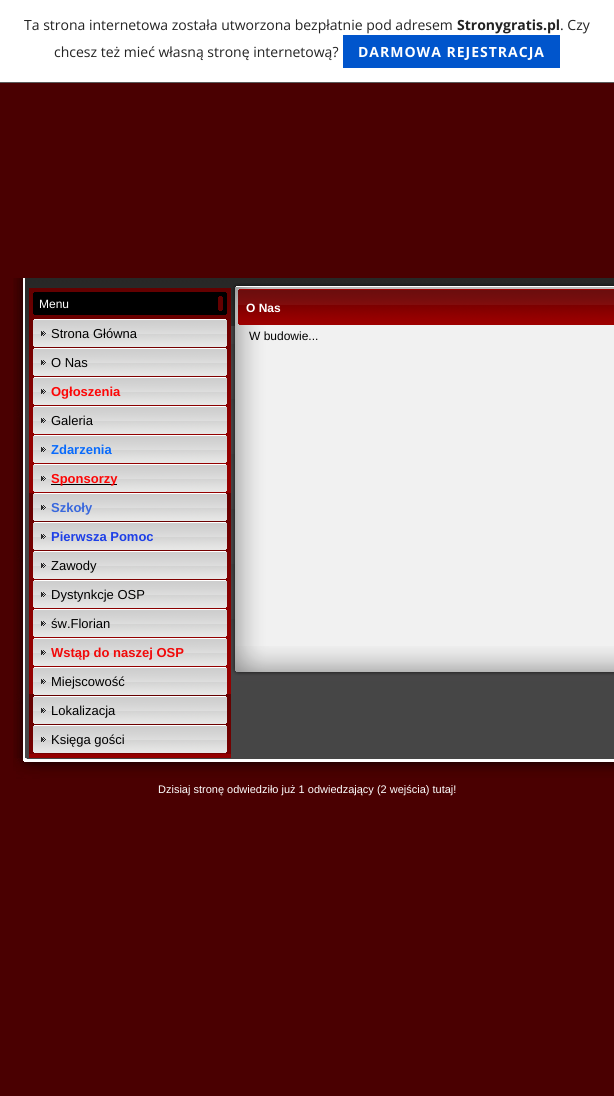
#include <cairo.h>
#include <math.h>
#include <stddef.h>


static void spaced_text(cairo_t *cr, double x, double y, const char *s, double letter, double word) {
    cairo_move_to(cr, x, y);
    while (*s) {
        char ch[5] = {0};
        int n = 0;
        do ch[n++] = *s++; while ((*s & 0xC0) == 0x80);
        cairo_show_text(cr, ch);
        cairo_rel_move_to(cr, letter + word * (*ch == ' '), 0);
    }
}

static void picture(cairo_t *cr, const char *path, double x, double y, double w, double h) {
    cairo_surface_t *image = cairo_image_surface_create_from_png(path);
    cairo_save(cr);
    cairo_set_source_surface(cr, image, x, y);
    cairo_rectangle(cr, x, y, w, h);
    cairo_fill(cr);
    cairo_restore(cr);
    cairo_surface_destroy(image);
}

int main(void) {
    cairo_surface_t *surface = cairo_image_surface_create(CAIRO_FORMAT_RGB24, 614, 1096);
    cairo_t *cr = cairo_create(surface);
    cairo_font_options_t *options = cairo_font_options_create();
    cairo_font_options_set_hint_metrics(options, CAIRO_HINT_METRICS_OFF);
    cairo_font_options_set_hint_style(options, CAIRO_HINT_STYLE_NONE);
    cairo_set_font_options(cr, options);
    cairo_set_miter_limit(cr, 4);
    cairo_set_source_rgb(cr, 0.29, 0, 0.004);
    cairo_paint(cr);
    cairo_set_source_rgb(cr, 1, 1, 1);
    cairo_rectangle(cr, 0, 0, 614, 82);
    cairo_fill(cr);
    cairo_set_source_rgb(cr, 0.353, 0.353, 0.353);
    cairo_rectangle(cr, 0, 82, 614, 1);
    cairo_fill(cr);
    cairo_select_font_face(cr, "Open Sans", CAIRO_FONT_SLANT_NORMAL, CAIRO_FONT_WEIGHT_NORMAL);
    cairo_set_font_size(cr, 14);
    cairo_set_source_rgb(cr, 0.137, 0.137, 0.137);
    cairo_move_to(cr, 24, 30);
    cairo_show_text(cr, "Ta strona internetowa została utworzona bezpłatnie pod adresem");
    cairo_select_font_face(cr, "Open Sans", CAIRO_FONT_SLANT_NORMAL, CAIRO_FONT_WEIGHT_BOLD);
    cairo_move_to(cr, 457, 30);
    cairo_show_text(cr, "Stronygratis.pl");
    cairo_select_font_face(cr, "Open Sans", CAIRO_FONT_SLANT_NORMAL, CAIRO_FONT_WEIGHT_NORMAL);
    cairo_move_to(cr, 560, 30);
    cairo_show_text(cr, ". Czy");
    cairo_move_to(cr, 54, 57);
    cairo_show_text(cr, "chcesz też mieć własną stronę internetową?");
    cairo_set_source_rgb(cr, 0, 0.333, 0.8);
    cairo_rectangle(cr, 343, 35, 217, 33);
    cairo_fill(cr);
    cairo_select_font_face(cr, "Open Sans", CAIRO_FONT_SLANT_NORMAL, CAIRO_FONT_WEIGHT_BOLD);
    cairo_set_source_rgb(cr, 1, 1, 1);
    spaced_text(cr, 358, 57, "DARMOWA REJESTRACJA", 1, 0);
    picture(cr, "img1.png", 13, 278, 10, 480);
    picture(cr, "img2.png", 23, 278, 591, 480);
    picture(cr, "img3.png", 25, 278, 206, 480);
    cairo_set_source_rgb(cr, 0.392, 0, 0);
    cairo_rectangle(cr, 29, 288, 202, 4);
    cairo_fill(cr);
    picture(cr, "img4.png", 29, 292, 202, 462);
    picture(cr, "img5.png", 33, 292, 194, 23);
    cairo_select_font_face(cr, "Liberation Sans", CAIRO_FONT_SLANT_NORMAL, CAIRO_FONT_WEIGHT_NORMAL);
    cairo_set_font_size(cr, 12);
    cairo_set_source_rgb(cr, 1, 1, 1);
    cairo_move_to(cr, 39, 308);
    cairo_show_text(cr, "Menu");
    picture(cr, "img6.png", 33, 319, 194, 28);
    cairo_set_font_size(cr, 13);
    cairo_set_source_rgb(cr, 0, 0, 0);
    cairo_move_to(cr, 51, 338);
    cairo_show_text(cr, "Strona Główna");
    picture(cr, "img7.png", 33, 348, 194, 28);
    cairo_move_to(cr, 51, 367);
    cairo_show_text(cr, "O Nas");
    picture(cr, "img8.png", 33, 377, 194, 28);
    cairo_select_font_face(cr, "Liberation Sans", CAIRO_FONT_SLANT_NORMAL, CAIRO_FONT_WEIGHT_BOLD);
    cairo_set_source_rgb(cr, 0.992, 0.027, 0.027);
    cairo_move_to(cr, 51, 396);
    cairo_show_text(cr, "Ogłoszenia");
    picture(cr, "img9.png", 33, 406, 194, 28);
    cairo_select_font_face(cr, "Liberation Sans", CAIRO_FONT_SLANT_NORMAL, CAIRO_FONT_WEIGHT_NORMAL);
    cairo_set_source_rgb(cr, 0, 0, 0);
    cairo_move_to(cr, 51, 425);
    cairo_show_text(cr, "Galeria");
    picture(cr, "img10.png", 33, 435, 194, 28);
    cairo_select_font_face(cr, "Liberation Sans", CAIRO_FONT_SLANT_NORMAL, CAIRO_FONT_WEIGHT_BOLD);
    cairo_set_source_rgb(cr, 0.039, 0.42, 0.988);
    cairo_move_to(cr, 51, 454);
    cairo_show_text(cr, "Zdarzenia");
    picture(cr, "img11.png", 33, 464, 194, 28);
    cairo_set_source_rgb(cr, 0, 0, 0);
    cairo_rectangle(cr, 51, 484, 66, 1);
    cairo_fill(cr);
    cairo_set_source_rgb(cr, 0.992, 0.027, 0.027);
    cairo_move_to(cr, 51, 483);
    cairo_show_text(cr, "Sponsorzy");
    picture(cr, "img12.png", 33, 493, 194, 28);
    cairo_set_source_rgb(cr, 0.224, 0.408, 0.867);
    cairo_move_to(cr, 51, 512);
    cairo_show_text(cr, "Szkoły");
    picture(cr, "img13.png", 33, 522, 194, 28);
    cairo_set_source_rgb(cr, 0.114, 0.247, 0.906);
    cairo_move_to(cr, 51, 541);
    cairo_show_text(cr, "Pierwsza Pomoc");
    picture(cr, "img14.png", 33, 551, 194, 28);
    cairo_select_font_face(cr, "Liberation Sans", CAIRO_FONT_SLANT_NORMAL, CAIRO_FONT_WEIGHT_NORMAL);
    cairo_set_source_rgb(cr, 0, 0, 0);
    cairo_move_to(cr, 51, 570);
    cairo_show_text(cr, "Zawody");
    picture(cr, "img15.png", 33, 580, 194, 28);
    cairo_move_to(cr, 51, 599);
    cairo_show_text(cr, "Dystynkcje OSP");
    picture(cr, "img16.png", 33, 609, 194, 28);
    cairo_move_to(cr, 51, 628);
    cairo_show_text(cr, "św.Florian");
    picture(cr, "img10.png", 33, 638, 194, 28);
    cairo_select_font_face(cr, "Liberation Sans", CAIRO_FONT_SLANT_NORMAL, CAIRO_FONT_WEIGHT_BOLD);
    cairo_set_source_rgb(cr, 0.945, 0.039, 0.039);
    cairo_move_to(cr, 51, 657);
    cairo_show_text(cr, "Wstąp do naszej OSP");
    picture(cr, "img17.png", 33, 667, 194, 28);
    cairo_select_font_face(cr, "Liberation Sans", CAIRO_FONT_SLANT_NORMAL, CAIRO_FONT_WEIGHT_NORMAL);
    cairo_set_source_rgb(cr, 0, 0, 0);
    cairo_move_to(cr, 51, 686);
    cairo_show_text(cr, "Miejscowość");
    picture(cr, "img18.png", 33, 696, 194, 28);
    cairo_move_to(cr, 51, 715);
    cairo_show_text(cr, "Lokalizacja");
    picture(cr, "img19.png", 33, 725, 194, 28);
    cairo_move_to(cr, 51, 744);
    cairo_show_text(cr, "Księga gości");
    cairo_set_source_rgb(cr, 0.58, 0, 0);
    cairo_rectangle(cr, 29, 754, 202, 4);
    cairo_fill(cr);
    picture(cr, "img20.png", 231, 278, 383, 11);
    picture(cr, "img21.png", 233, 283, 381, 6);
    picture(cr, "img22.png", 231, 326, 383, 320);
    picture(cr, "img23.png", 231, 289, 383, 37);
    cairo_select_font_face(cr, "Liberation Sans", CAIRO_FONT_SLANT_NORMAL, CAIRO_FONT_WEIGHT_BOLD);
    cairo_set_font_size(cr, 12);
    cairo_set_source_rgb(cr, 1, 1, 1);
    cairo_move_to(cr, 246, 312);
    cairo_show_text(cr, "O Nas");
    cairo_select_font_face(cr, "Liberation Sans", CAIRO_FONT_SLANT_NORMAL, CAIRO_FONT_WEIGHT_NORMAL);
    cairo_set_source_rgb(cr, 0, 0, 0);
    cairo_move_to(cr, 249, 340);
    cairo_show_text(cr, "W budowie...");
    picture(cr, "img24.png", 231, 646, 383, 35);
    picture(cr, "img25.png", 13, 758, 601, 25);
    cairo_set_font_size(cr, 11);
    cairo_set_source_rgb(cr, 1, 1, 1);
    cairo_move_to(cr, 158, 793);
    cairo_show_text(cr, "Dzisiaj stronę odwiedziło już 1 odwiedzający (2 wejścia) tutaj!");
    cairo_surface_write_to_png(surface, "page.png");
    cairo_font_options_destroy(options);
    cairo_destroy(cr);
    cairo_surface_destroy(surface);
    return 0;
}
